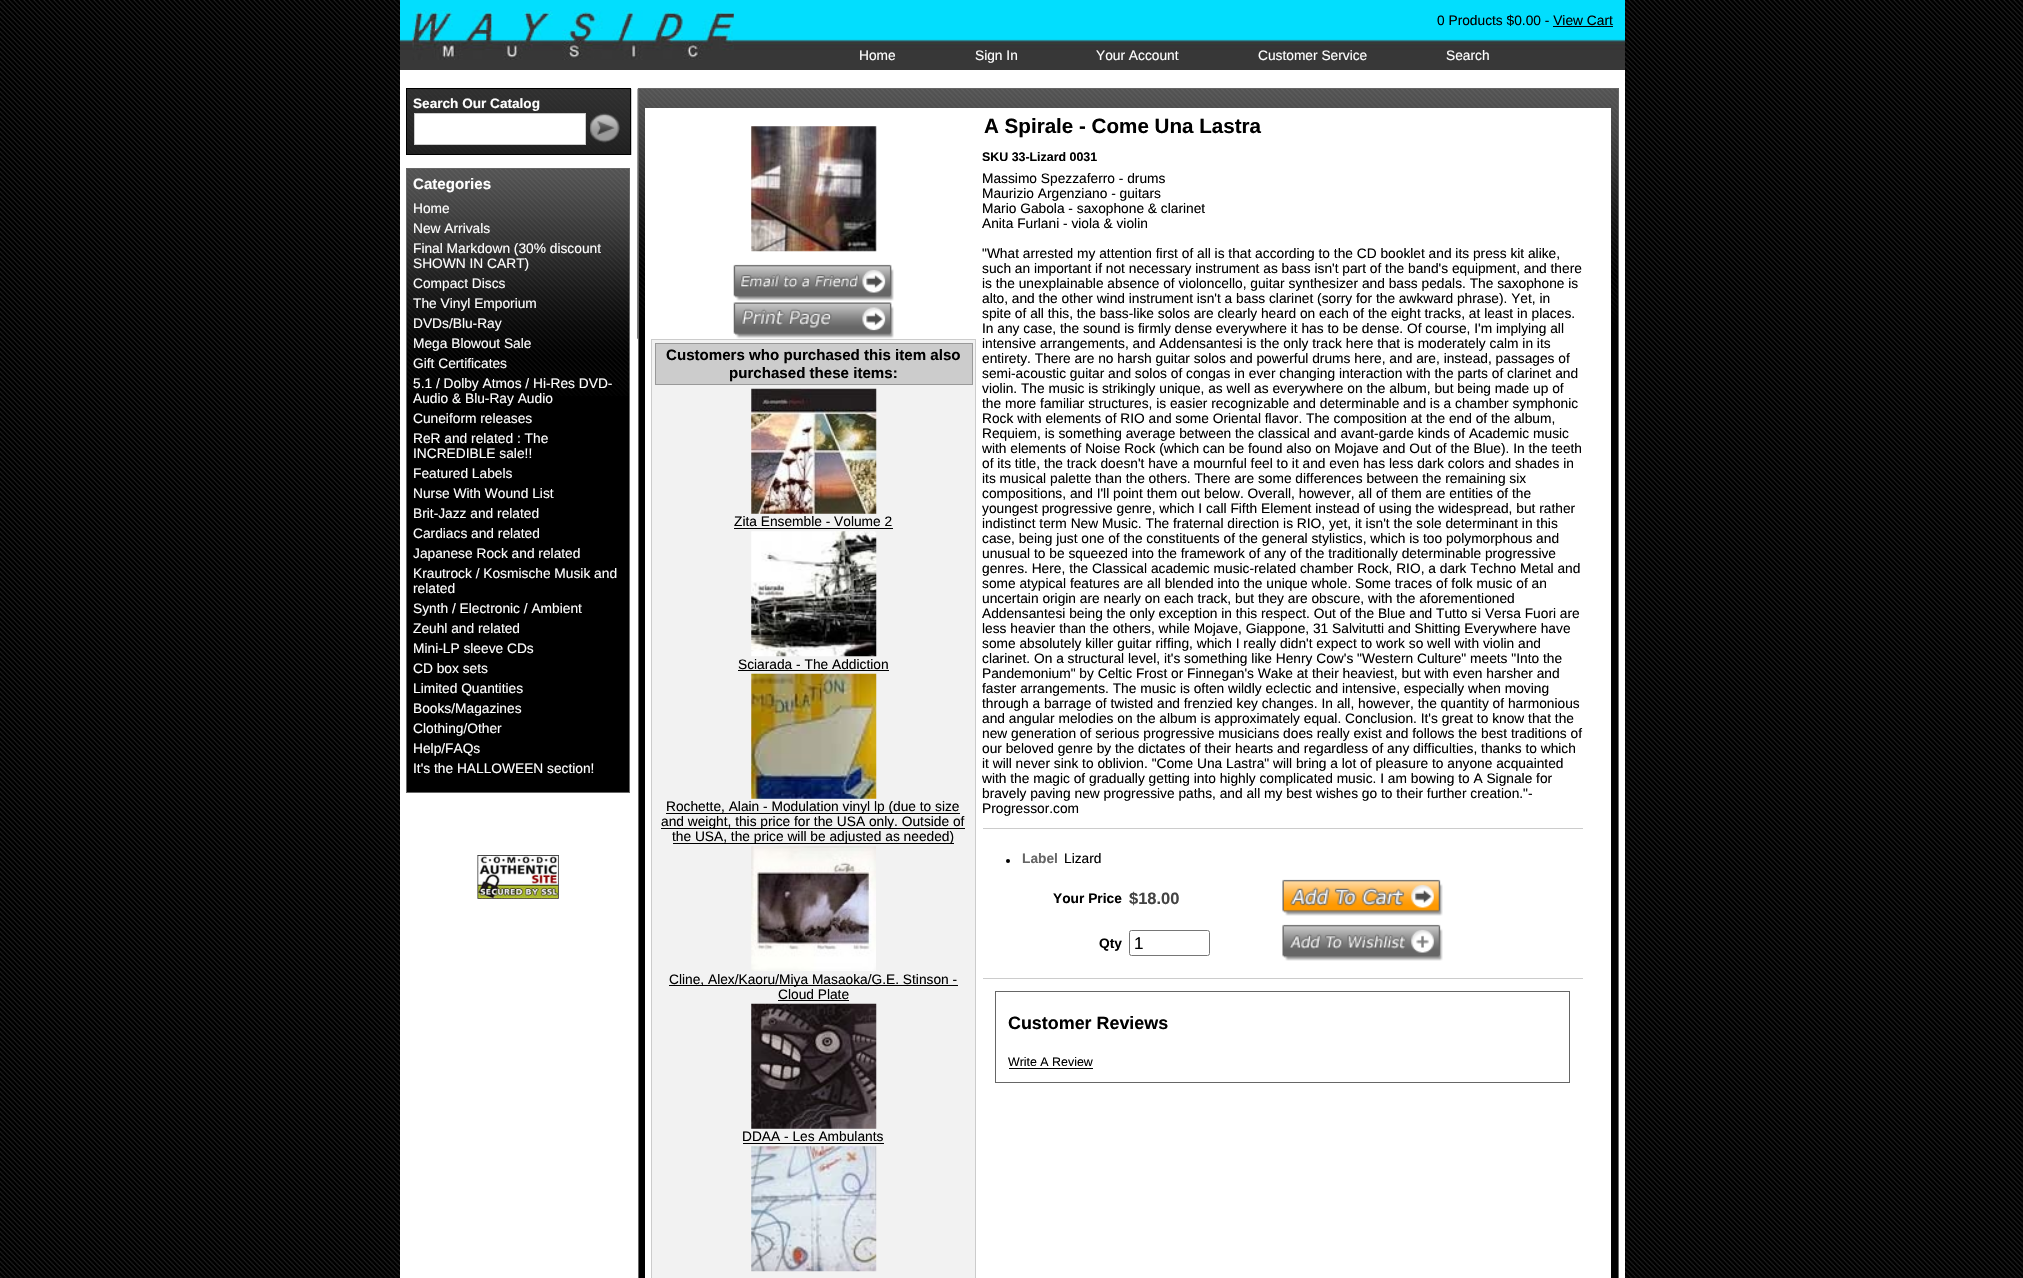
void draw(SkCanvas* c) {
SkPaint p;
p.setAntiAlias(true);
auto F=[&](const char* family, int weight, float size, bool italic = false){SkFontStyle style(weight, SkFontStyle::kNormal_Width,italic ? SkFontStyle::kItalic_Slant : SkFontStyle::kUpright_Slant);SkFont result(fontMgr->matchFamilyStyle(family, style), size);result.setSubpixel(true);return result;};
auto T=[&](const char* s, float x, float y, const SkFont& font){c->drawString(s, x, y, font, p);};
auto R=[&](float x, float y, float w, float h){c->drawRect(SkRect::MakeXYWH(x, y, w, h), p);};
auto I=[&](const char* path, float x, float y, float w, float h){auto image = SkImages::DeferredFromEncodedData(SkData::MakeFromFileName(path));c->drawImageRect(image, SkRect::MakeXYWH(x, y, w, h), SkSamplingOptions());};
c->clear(0xffffffff);
I("1.png",0,0,2023,1278);
p.setColor(0xffffffff);
R(400,70,1225,1208);
I("2.png",400,0,1225,70);
I("3.png",412,10,322,50);
auto f1 = F("Liberation Sans",400,13.75);
p.setColor(0xff000000);
T("0 Products $0.00 - View Cart",1437,25,f1);
R(1553,26,60,1);
p.setColor(0xffffffff);
T("Home",859,60,f1);
T("Sign In",975,60,f1);
T("Your Account",1096,60,f1);
T("Customer Service",1258,60,f1);
T("Search",1446,60,f1);
I("4.png",407,88,225,67);
p.setStroke(true);
p.setStrokeWidth(1);
p.setColor(0xff000000);
c->drawRect(SkRect::MakeXYWH(406.5,88.5,224,66),p);
auto f2 = F("Liberation Sans",700,13.6);
p.setStroke(false);
p.setColor(0xffffffff);
T("Search Our Catalog",413,108,f2);
c->drawRect(SkRect::MakeXYWH(414.5,113.5,171,31),p);
p.setStroke(true);
p.setColor(0xffcccccc);
c->drawRect(SkRect::MakeXYWH(414.5,113.5,171,31),p);
I("5.png",590,113,30,30);
p.setStroke(false);
p.setColor(0xff000000);
R(407,396,222,396);
I("6.png",407,169,222,227);
p.setStroke(true);
p.setColor(0xff666666);
c->drawRect(SkRect::MakeXYWH(406.5,168.5,223,624),p);
auto f3 = F("Liberation Sans",700,15.1);
p.setStroke(false);
p.setColor(0xffffffff);
T("Categories",413,189,f3);
T("Home",413,213,f1);
T("New Arrivals",413,233,f1);
T("Final Markdown (30% discount",413,253,f1);
T("SHOWN IN CART)",413,268,f1);
T("Compact Discs",413,288,f1);
T("The Vinyl Emporium",413,308,f1);
T("DVDs/Blu-Ray",413,328,f1);
T("Mega Blowout Sale",413,348,f1);
T("Gift Certificates",413,368,f1);
T("5.1 / Dolby Atmos / Hi-Res DVD-",413,388,f1);
T("Audio & Blu-Ray Audio",413,403,f1);
T("Cuneiform releases",413,423,f1);
T("ReR and related : The",413,443,f1);
T("INCREDIBLE sale!!",413,458,f1);
T("Featured Labels",413,478,f1);
T("Nurse With Wound List",413,498,f1);
T("Brit-Jazz and related",413,518,f1);
T("Cardiacs and related",413,538,f1);
T("Japanese Rock and related",413,558,f1);
T("Krautrock / Kosmische Musik and",413,578,f1);
T("related",413,593,f1);
T("Synth / Electronic / Ambient",413,613,f1);
T("Zeuhl and related",413,633,f1);
T("Mini-LP sleeve CDs",413,653,f1);
T("CD box sets",413,673,f1);
T("Limited Quantities",413,693,f1);
T("Books/Magazines",413,713,f1);
T("Clothing/Other",413,733,f1);
T("Help/FAQs",413,753,f1);
T("It's the HALLOWEEN section!",413,773,f1);
I("7.png",477,855,82,44);
p.setColor(0xff000000);
R(639,338,979,940);
I("8.png",637,88,981,251);
p.setStroke(true);
p.setColor(0xff666666);
c->drawRect(SkRect::MakeXYWH(638.5,88.5,980,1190),p);
p.setStroke(false);
p.setColor(0xffffffff);
R(645,108,966,1170);
I("9.png",751,126,126,126);
I("10.png",733,264,161,37);
I("11.png",733,302,161,37);
p.setColor(0xfff2f2f2);
c->drawRect(SkRect::MakeXYWH(651.5,339.5,324,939),p);
p.setStroke(true);
p.setColor(0xffcccccc);
c->drawRect(SkRect::MakeXYWH(651.5,339.5,324,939),p);
p.setStroke(false);
c->drawRect(SkRect::MakeXYWH(655.5,343.5,317,41),p);
p.setStroke(true);
p.setColor(0xff999999);
c->drawRect(SkRect::MakeXYWH(655.5,343.5,317,41),p);
p.setStroke(false);
p.setColor(0xff000000);
T("Customers who purchased this item also",666,360,f3);
T("purchased these items:",729,378,f3);
I("12.png",751,388,126,126);
T("Zita Ensemble - Volume 2",734,526,f1);
R(734,528,159,1);
I("13.png",751,531,126,126);
T("Sciarada - The Addiction",738,669,f1);
R(738,670,151,1);
I("14.png",751,673,126,126);
R(666,813,294,1);
T("Rochette, Alain - Modulation vinyl lp (due to size",666,811,f1);
R(661,828,304,1);
T("and weight, this price for the USA only. Outside of",661,826,f1);
R(673,843,281,1);
T("the USA, the price will be adjusted as needed)",672,841,f1);
I("15.png",751,846,125,125);
R(669,985,289,1);
T("Cline, Alex/Kaoru/Miya Masaoka/G.E. Stinson -",669,984,f1);
T("Cloud Plate",778,999,f1);
R(778,1000,71,1);
I("16.png",751,1003,126,126);
T("DDAA - Les Ambulants",742,1141,f1);
R(743,1143,141,1);
I("17.png",751,1146,126,126);
auto f4 = F("Liberation Sans",700,20.6);
T("A Spirale - Come Una Lastra",984,133,f4);
auto f5 = F("Liberation Sans",700,12.4);
T("SKU 33-Lizard 0031",982,161,f5);
T("Massimo Spezzaferro - drums",982,183,f1);
T("Maurizio Argenziano - guitars",982,198,f1);
T("Mario Gabola - saxophone & clarinet",982,213,f1);
T("Anita Furlani - viola & violin",982,228,f1);
T("\"What arrested my attention first of all is that according to the CD booklet and its press kit alike,",982,258,f1);
T("such an important if not necessary instrument as bass isn't part of the band's equipment, and there",982,273,f1);
T("is the unexplainable absence of violoncello, guitar synthesizer and bass pedals. The saxophone is",982,288,f1);
T("alto, and the other wind instrument isn't a bass clarinet (sorry for the awkward phrase). Yet, in",982,303,f1);
T("spite of all this, the bass-like solos are clearly heard on each of the eight tracks, at least in places.",982,318,f1);
T("In any case, the sound is firmly dense everywhere it has to be dense. Of course, I'm implying all",982,333,f1);
T("intensive arrangements, and Addensantesi is the only track here that is moderately calm in its",982,348,f1);
T("entirety. There are no harsh guitar solos and powerful drums here, and are, instead, passages of",982,363,f1);
T("semi-acoustic guitar and solos of congas in ever changing interaction with the parts of clarinet and",982,378,f1);
T("violin. The music is strikingly unique, as well as everywhere on the album, but being made up of",982,393,f1);
T("the more familiar structures, is easier recognizable and determinable and is a chamber symphonic",982,408,f1);
T("Rock with elements of RIO and some Oriental flavor. The composition at the end of the album,",982,423,f1);
T("Requiem, is something average between the classical and avant-garde kinds of Academic music",982,438,f1);
T("with elements of Noise Rock (which can be found also on Mojave and Out of the Blue). In the teeth",982,453,f1);
T("of its title, the track doesn't have a mournful feel to it and even has less dark colors and shades in",982,468,f1);
T("its musical palette than the others. There are some differences between the remaining six",982,483,f1);
T("compositions, and I'll point them out below. Overall, however, all of them are entities of the",982,498,f1);
T("youngest progressive genre, which I call Fifth Element instead of using the widespread, but rather",982,513,f1);
T("indistinct term New Music. The fraternal direction is RIO, yet, it isn't the sole determinant in this",982,528,f1);
T("case, being just one of the constituents of the general stylistics, which is too polymorphous and",982,543,f1);
T("unusual to be squeezed into the framework of any of the traditionally determinable progressive",982,558,f1);
T("genres. Here, the Classical academic music-related chamber Rock, RIO, a dark Techno Metal and",982,573,f1);
T("some atypical features are all blended into the unique whole. Some traces of folk music of an",982,588,f1);
T("uncertain origin are nearly on each track, but they are obscure, with the aforementioned",982,603,f1);
T("Addensantesi being the only exception in this respect. Out of the Blue and Tutto si Versa Fuori are",982,618,f1);
T("less heavier than the others, while Mojave, Giappone, 31 Salvitutti and Shitting Everywhere have",982,633,f1);
T("some absolutely killer guitar riffing, which I really didn't expect to work so well with violin and",982,648,f1);
T("clarinet. On a structural level, it's something like Henry Cow's \"Western Culture\" meets \"Into the",982,663,f1);
T("Pandemonium\" by Celtic Frost or Finnegan's Wake at their heaviest, but with even harsher and",982,678,f1);
T("faster arrangements. The music is often wildly eclectic and intensive, especially when moving",982,693,f1);
T("through a barrage of twisted and frenzied key changes. In all, however, the quantity of harmonious",982,708,f1);
T("and angular melodies on the album is approximately equal. Conclusion. It's great to know that the",982,723,f1);
T("new generation of serious progressive musicians does really exist and follows the best traditions of",982,738,f1);
T("our beloved genre by the dictates of their hearts and regardless of any difficulties, thanks to which",982,753,f1);
T("it will never sink to oblivion. \"Come Una Lastra\" will bring a lot of pleasure to anyone acquainted",982,768,f1);
T("with the magic of gradually getting into highly complicated music. I am bowing to A Signale for",982,783,f1);
T("bravely paving new progressive paths, and all my best wishes go to their further creation.\"-",982,798,f1);
T("Progressor.com",982,813,f1);
p.setColor(0xffcccccc);
R(983,828,600,1);
R(983,978,600,1);
p.setColor(0xff000000);
c->drawCircle(1008,861,2,p);
auto f6 = F("Liberation Sans",700,13.75);
p.setColor(0xff666666);
T("Label",1022,863,f6);
p.setColor(0xff000000);
T("Lizard",1064,863,f1);
T("Your Price",1053,903,f6);
auto f7 = F("Liberation Sans",700,16.5);
p.setColor(0xff444444);
T("$18.00",1129,904,f7);
I("18.png",1282,879,161,37);
p.setColor(0xff000000);
T("Qty",1099,948,f6);
p.setStroke(true);
p.setColor(0xff767676);
c->drawRoundRect(SkRect::MakeXYWH(1129.5,930.5,80,25),2,2,p);
auto f8 = F("Liberation Sans",400,17);
p.setStroke(false);
p.setColor(0xff000000);
T("1",1134,949,f8);
I("19.png",1282,924,161,37);
p.setStroke(true);
p.setColor(0xff666666);
c->drawRect(SkRect::MakeXYWH(995.5,991.5,574,91),p);
auto f9 = F("Liberation Sans",700,17.9);
p.setStroke(false);
p.setColor(0xff000000);
T("Customer Reviews",1008,1029,f9);
auto f10 = F("Liberation Sans",400,12.4);
T("Write A Review",1008,1066,f10);
R(1009,1068,84,1);
}
